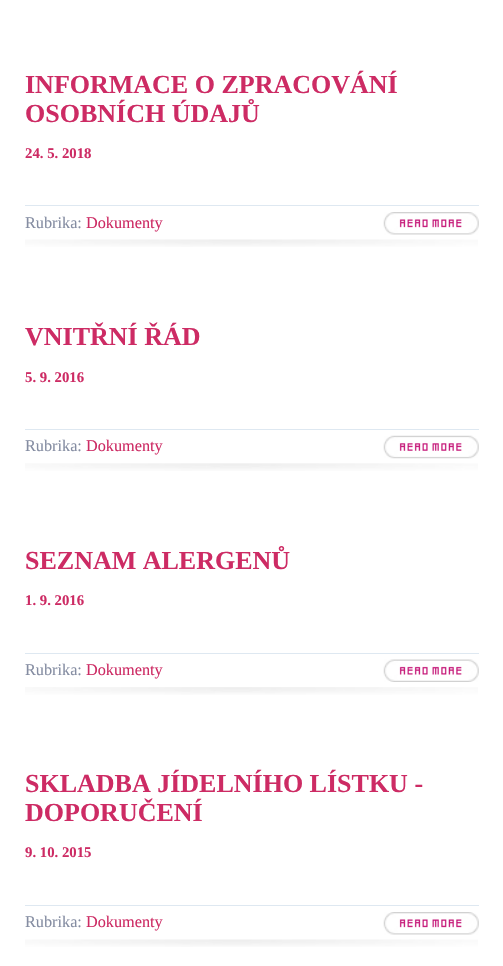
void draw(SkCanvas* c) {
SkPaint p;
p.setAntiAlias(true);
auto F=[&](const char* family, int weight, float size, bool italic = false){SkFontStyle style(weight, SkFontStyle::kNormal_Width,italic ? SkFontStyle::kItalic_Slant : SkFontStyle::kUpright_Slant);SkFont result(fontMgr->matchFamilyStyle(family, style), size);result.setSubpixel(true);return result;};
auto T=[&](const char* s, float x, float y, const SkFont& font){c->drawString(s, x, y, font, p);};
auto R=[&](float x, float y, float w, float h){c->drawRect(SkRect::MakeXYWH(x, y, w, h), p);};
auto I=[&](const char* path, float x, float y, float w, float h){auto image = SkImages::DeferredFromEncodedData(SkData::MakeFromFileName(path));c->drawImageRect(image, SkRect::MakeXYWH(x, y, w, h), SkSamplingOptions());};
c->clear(0xffffffff);
auto f1 = F("Liberation Serif",700,26);
p.setColor(0xffcd2b64);
T("INFORMACE O ZPRACOVÁNÍ",25,93,f1);
T("OSOBNÍCH ÚDAJŮ",25,122,f1);
auto f2 = F("Liberation Serif",700,14.75);
T("24. 5. 2018",25,158,f2);
I("1.png",25,239,453,8);
p.setColor(0xffdee8f1);
R(25,205,454,1);
auto f3 = F("Liberation Serif",400,16.25);
p.setColor(0xff858da2);
T("Rubrika:",25,228,f3);
p.setColor(0xffcd2b64);
T("Dokumenty",86,228,f3);
I("2.png",383,212,96,23);
T("VNITŘNÍ ŘÁD",25,345,f1);
T("5. 9. 2016",25,382,f2);
I("3.png",25,463,453,8);
p.setColor(0xffdee8f1);
R(25,429,454,1);
p.setColor(0xff858da2);
T("Rubrika:",25,451,f3);
p.setColor(0xffcd2b64);
T("Dokumenty",86,451,f3);
I("4.png",383,435,96,24);
T("SEZNAM ALERGENŮ",25,569,f1);
T("1. 9. 2016",25,605,f2);
I("5.png",25,687,453,8);
p.setColor(0xffdee8f1);
R(25,653,454,1);
p.setColor(0xff858da2);
T("Rubrika:",25,675,f3);
p.setColor(0xffcd2b64);
T("Dokumenty",86,675,f3);
I("6.png",383,659,96,23);
T("SKLADBA JÍDELNÍHO LÍSTKU -",25,792,f1);
T("DOPORUČENÍ",25,821,f1);
T("9. 10. 2015",25,857,f2);
I("1.png",25,939,453,8);
p.setColor(0xffdee8f1);
R(25,905,454,1);
p.setColor(0xff858da2);
T("Rubrika:",25,927,f3);
p.setColor(0xffcd2b64);
T("Dokumenty",86,927,f3);
I("7.png",383,912,96,23);
}
